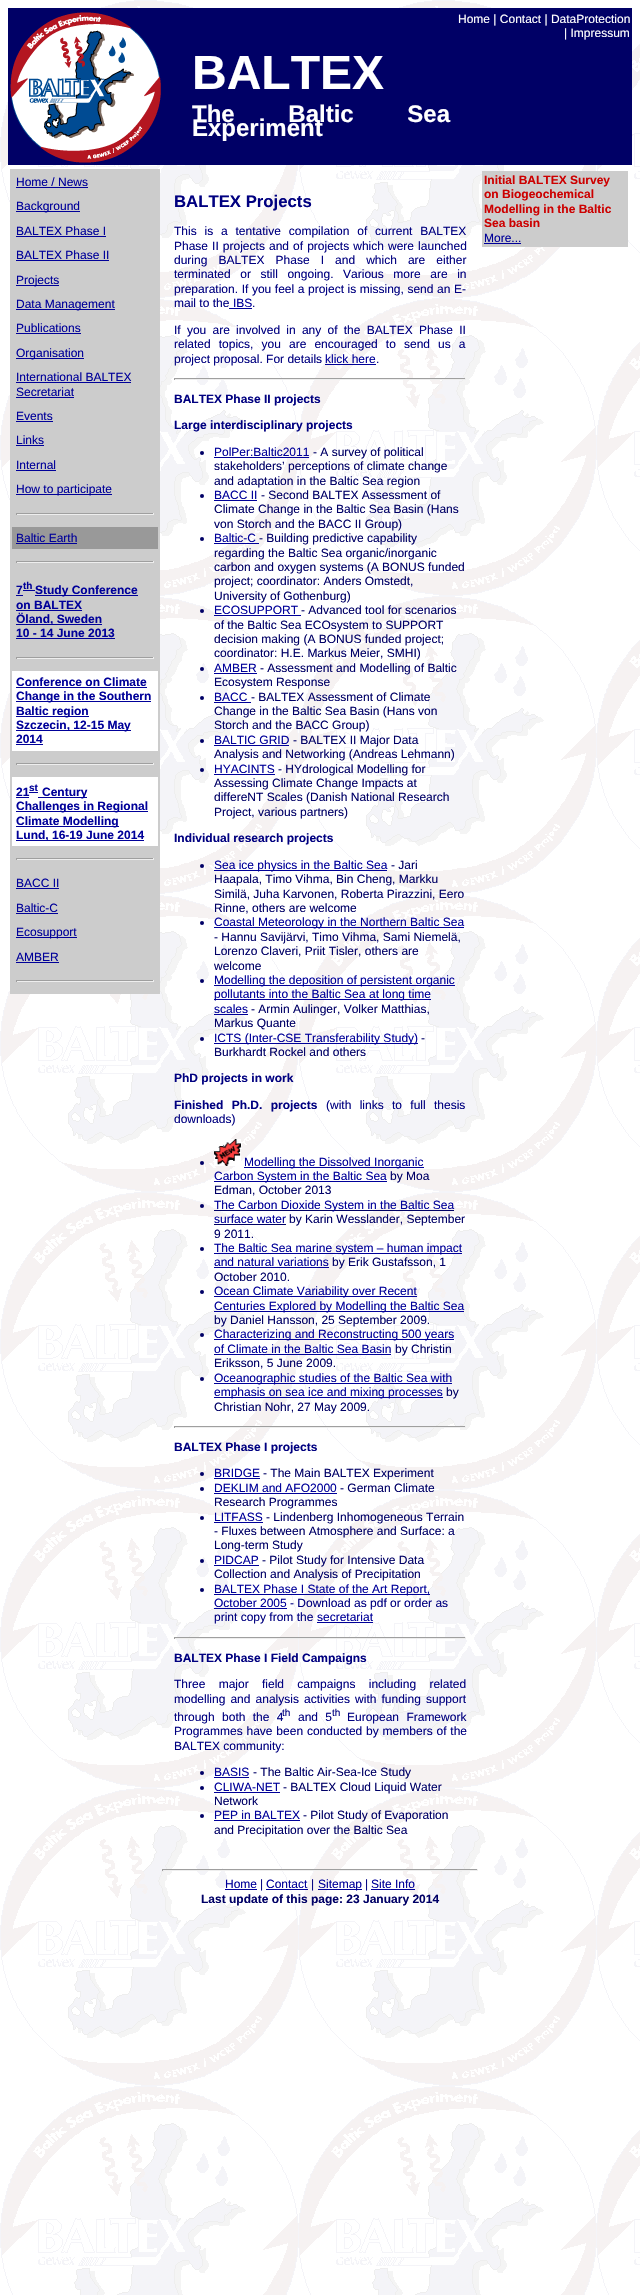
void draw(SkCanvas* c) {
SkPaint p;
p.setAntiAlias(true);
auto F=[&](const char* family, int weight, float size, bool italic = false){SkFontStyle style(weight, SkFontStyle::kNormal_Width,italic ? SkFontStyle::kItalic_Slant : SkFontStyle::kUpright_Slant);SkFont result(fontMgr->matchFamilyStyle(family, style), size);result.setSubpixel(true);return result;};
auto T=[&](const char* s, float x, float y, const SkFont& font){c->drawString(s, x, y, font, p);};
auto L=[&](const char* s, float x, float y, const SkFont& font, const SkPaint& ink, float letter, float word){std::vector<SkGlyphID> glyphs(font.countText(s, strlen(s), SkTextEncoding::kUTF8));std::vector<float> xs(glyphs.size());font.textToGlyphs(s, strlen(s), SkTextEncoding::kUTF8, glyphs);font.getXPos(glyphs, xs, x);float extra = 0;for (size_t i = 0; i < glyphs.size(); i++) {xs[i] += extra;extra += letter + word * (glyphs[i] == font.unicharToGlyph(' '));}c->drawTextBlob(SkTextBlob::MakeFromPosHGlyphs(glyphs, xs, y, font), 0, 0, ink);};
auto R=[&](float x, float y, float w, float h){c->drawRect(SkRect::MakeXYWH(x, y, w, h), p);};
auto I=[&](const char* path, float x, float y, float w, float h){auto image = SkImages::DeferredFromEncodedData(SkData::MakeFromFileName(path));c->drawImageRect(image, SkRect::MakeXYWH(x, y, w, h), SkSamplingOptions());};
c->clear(0xffffffff);
I("1.png",0,0,640,2295);
p.setColor(0xff000066);
R(8,8,624,157);
I("2.png",10,12,151,151);
auto f1 = F("Liberation Sans",400,12);
p.setColor(0xffffffff);
T("Home | Contact | DataProtection",458,23,f1);
T("| Impressum",564,37,f1);
auto f2 = F("Liberation Sans",700,48);
T("BALTEX",192,89,f2);
auto f3 = F("Liberation Sans",700,24);
L("The Baltic Sea",192,122,f3,p,0,47);
T("Experiment",192,136,f3);
p.setColor(0xffcccccc);
R(10,169,150,825);
p.setColor(0xff000099);
T("Home / News",16,186,f1);
R(16,187,72,1);
R(16,211,64,1);
T("Background",16,210,f1);
T("BALTEX Phase I",16,235,f1);
R(16,236,90,1);
T("BALTEX Phase II",16,259,f1);
R(16,260,93,1);
R(16,285,43,1);
T("Projects",16,284,f1);
R(16,309,99,1);
T("Data Management",16,308,f1);
T("Publications",16,332,f1);
R(16,333,65,1);
R(16,358,68,1);
T("Organisation",16,357,f1);
T("International BALTEX",16,381,f1);
R(16,382,115,1);
T("Secretariat",16,396,f1);
R(16,397,58,1);
T("Events",16,420,f1);
R(16,421,37,1);
T("Links",16,444,f1);
R(16,445,28,1);
T("Internal",16,469,f1);
R(16,470,40,1);
R(16,494,96,1);
T("How to participate",16,493,f1);
p.setColor(0xff9f9f9f);
R(16,513,138,1);
p.setColor(0xffeeeeee);
R(153,513,1,2);
R(16,514,138,1);
p.setColor(0xff9f9f9f);
R(16,513,1,2);
p.setColor(0xff999999);
R(12,527,146,22);
p.setColor(0xff000099);
T("Baltic Earth",16,542,f1);
R(16,543,61,1);
p.setColor(0xff9f9f9f);
R(16,561,138,1);
p.setColor(0xffeeeeee);
R(153,561,1,2);
R(16,562,138,1);
p.setColor(0xff9f9f9f);
R(16,561,1,2);
auto f4 = F("Liberation Sans",700,12);
p.setColor(0xff000099);
T("7",16,594,f4);
R(16,595,7,1);
auto f5 = F("Liberation Sans",700,10);
T("th",23,589,f5);
R(35,595,103,1);
T("Study Conference",35,594,f4);
R(23,590,12,1);
T("on BALTEX",16,609,f4);
R(16,610,66,1);
R(16,624,86,1);
T("Öland, Sweden",16,623,f4);
T("10 - 14 June 2013",16,637,f4);
R(16,638,99,1);
p.setColor(0xff9f9f9f);
R(16,657,138,1);
p.setColor(0xffeeeeee);
R(153,657,1,2);
R(16,658,138,1);
p.setColor(0xff9f9f9f);
R(16,657,1,2);
p.setColor(0xffffffff);
R(12,671,146,80);
p.setColor(0xff000099);
T("Conference on Climate",16,686,f4);
R(16,687,131,1);
R(16,701,135,1);
T("Change in the Southern",16,700,f4);
R(16,716,73,1);
T("Baltic region",16,715,f4);
R(16,730,115,1);
T("Szczecin, 12-15 May",16,729,f4);
T("2014",16,743,f4);
R(16,744,27,1);
p.setColor(0xff9f9f9f);
R(16,763,138,1);
p.setColor(0xffeeeeee);
R(153,763,1,2);
R(16,764,138,1);
p.setColor(0xff9f9f9f);
R(16,763,1,2);
p.setColor(0xffffffff);
R(12,777,146,69);
p.setColor(0xff000099);
T("21",16,796,f4);
R(16,797,13,1);
R(29,792,9,1);
T("st",29,791,f5);
R(38,797,49,1);
T("Century",42,796,f4);
R(16,811,132,1);
T("Challenges in Regional",16,810,f4);
R(16,826,103,1);
T("Climate Modelling",16,825,f4);
R(16,840,128,1);
T("Lund, 16-19 June 2014",16,839,f4);
p.setColor(0xff9f9f9f);
R(16,858,138,1);
p.setColor(0xffeeeeee);
R(153,858,1,2);
R(16,859,138,1);
p.setColor(0xff9f9f9f);
R(16,858,1,2);
p.setColor(0xff000099);
T("BACC II",16,887,f1);
R(16,888,43,1);
T("Baltic-C",16,912,f1);
R(16,913,42,1);
R(16,937,61,1);
T("Ecosupport",16,936,f1);
T("AMBER",16,961,f1);
R(16,962,43,1);
p.setColor(0xff9f9f9f);
R(16,980,138,1);
p.setColor(0xffeeeeee);
R(153,980,1,2);
R(16,981,138,1);
p.setColor(0xff9f9f9f);
R(16,980,1,2);
auto f6 = F("Liberation Sans",700,16.75);
p.setColor(0xff000080);
T("BALTEX Projects",174,207,f6);
L("This is a tentative compilation of current BALTEX",174,235,f1,p,0,4.5);
L("Phase II projects and of projects which were launched",174,250,f1,p,0,.75);
L("during BALTEX Phase I and which are either",174,264,f1,p,0,7.75);
L("terminated or still ongoing. Various more are in",174,278,f1,p,0,6.25);
L("preparation. If you feel a project is missing, send an E-",174,293,f1,p,0,.25);
T("mail to the",174,307,f1);
p.setColor(0xff000099);
T("IBS",233,307,f1);
R(229,308,23,1);
p.setColor(0xff000080);
T(".",252,307,f1);
L("If you are involved in any of the BALTEX Phase II",174,334,f1,p,0,2.9);
L("related topics, you are encouraged to send us a",174,348,f1,p,0,4.75);
T("project proposal. For details",174,363,f1);
p.setColor(0xff000099);
T("klick here",325,363,f1);
R(325,364,51,1);
p.setColor(0xff000080);
T(".",376,363,f1);
p.setColor(0xff9f9f9f);
R(174,378,292,1);
p.setColor(0xffeeeeee);
R(465,378,1,2);
R(174,379,292,1);
p.setColor(0xff9f9f9f);
R(174,378,1,2);
p.setColor(0xff000080);
T("BALTEX Phase II projects",174,403,f4);
T("Large interdisciplinary projects",174,429,f4);
p.setColor(0xff000066);
c->drawCircle(202,453,2,p);
p.setColor(0xff000099);
T("PolPer:Baltic2011",214,456,f1);
R(214,457,95,1);
p.setColor(0xff000066);
T("- A survey of political",313,456,f1);
T("stakeholders’ perceptions of climate change",214,470,f1);
T("and adaptation in the Baltic Sea region",214,485,f1);
c->drawCircle(202,496,2,p);
p.setColor(0xff000099);
T("BACC II",214,499,f1);
R(214,500,43,1);
p.setColor(0xff000066);
T("- Second BALTEX Assessment of",261,499,f1);
T("Climate Change in the Baltic Sea Basin (Hans",214,513,f1);
T("von Storch and the BACC II Group)",214,528,f1);
c->drawCircle(202,539,2,p);
p.setColor(0xff000099);
T("Baltic-C",214,542,f1);
p.setColor(0xff000066);
T("- Building predictive capability",259,542,f1);
p.setColor(0xff000099);
R(214,543,45,1);
p.setColor(0xff000066);
T("regarding the Baltic Sea organic/inorganic",214,557,f1);
T("carbon and oxygen systems (A BONUS funded",214,571,f1);
T("project; coordinator: Anders Omstedt,",214,585,f1);
T("University of Gothenburg)",214,600,f1);
c->drawCircle(202,611,2,p);
p.setColor(0xff000099);
T("ECOSUPPORT",214,614,f1);
R(214,615,87,1);
p.setColor(0xff000066);
T("- Advanced tool for scenarios",301,614,f1);
T("of the Baltic Sea ECOsystem to SUPPORT",214,629,f1);
T("decision making (A BONUS funded project;",214,643,f1);
T("coordinator: H.E. Markus Meier, SMHI)",214,657,f1);
c->drawCircle(202,669,2,p);
p.setColor(0xff000099);
T("AMBER",214,672,f1);
R(214,673,43,1);
p.setColor(0xff000066);
T("- Assessment and Modelling of Baltic",260,672,f1);
T("Ecosystem Response",214,686,f1);
c->drawCircle(202,698,2,p);
p.setColor(0xff000099);
T("BACC",214,701,f1);
R(214,702,37,1);
p.setColor(0xff000066);
T("- BALTEX Assessment of Climate",251,701,f1);
T("Change in the Baltic Sea Basin (Hans von",214,715,f1);
T("Storch and the BACC Group)",214,729,f1);
c->drawCircle(202,741,2,p);
p.setColor(0xff000099);
T("BALTIC GRID",214,744,f1);
R(214,745,75,1);
p.setColor(0xff000066);
T("- BALTEX II Major Data",293,744,f1);
T("Analysis and Networking (Andreas Lehmann)",214,758,f1);
c->drawCircle(202,770,2,p);
p.setColor(0xff000099);
T("HYACINTS",214,773,f1);
R(214,774,61,1);
p.setColor(0xff000066);
T("- HYdrological Modelling for",278,773,f1);
T("Assessing Climate Change Impacts at",214,787,f1);
T("differeNT Scales (Danish National Research",214,801,f1);
T("Project, various partners)",214,816,f1);
p.setColor(0xff000080);
T("Individual research projects",174,842,f4);
p.setColor(0xff000066);
c->drawCircle(202,866,2,p);
p.setColor(0xff000099);
R(214,870,173,1);
T("Sea ice physics in the Baltic Sea",214,869,f1);
p.setColor(0xff000066);
T("- Jari",391,869,f1);
T("Haapala, Timo Vihma, Bin Cheng, Markku",214,883,f1);
T("Similä, Juha Karvonen, Roberta Pirazzini, Eero",214,898,f1);
T("Rinne, others are welcome",214,912,f1);
c->drawCircle(202,923,2,p);
p.setColor(0xff000099);
R(214,927,250,1);
T("Coastal Meteorology in the Northern Baltic Sea",214,926,f1);
p.setColor(0xff000066);
T("- Hannu Savijärvi, Timo Vihma, Sami Niemelä,",214,941,f1);
T("Lorenzo Claveri, Priit Tisler, others are",214,955,f1);
T("welcome",214,970,f1);
c->drawCircle(202,981,2,p);
p.setColor(0xff000099);
R(214,985,241,1);
T("Modelling the deposition of persistent organic",214,984,f1);
R(214,999,151,1);
T("pollutants into the Baltic Sea",214,998,f1);
R(365,999,66,1);
T("at long time",369,998,f1);
T("scales",214,1013,f1);
R(214,1014,34,1);
p.setColor(0xff000066);
T("- Armin Aulinger, Volker Matthias,",251,1013,f1);
T("Markus Quante",214,1027,f1);
c->drawCircle(202,1039,2,p);
p.setColor(0xff000099);
R(214,1043,204,1);
T("ICTS (Inter-CSE Transferability Study)",214,1042,f1);
p.setColor(0xff000066);
T("-",421,1042,f1);
T("Burkhardt Rockel and others",214,1056,f1);
p.setColor(0xff000080);
T("PhD projects in work",174,1082,f4);
L("Finished Ph.D. projects",174,1109,f4,p,0,5);
L("(with links to full thesis",326,1109,f1,p,0,5);
T("downloads)",174,1123,f1);
p.setColor(0xff000066);
c->drawCircle(202,1163,2,p);
I("3.png",214,1139,27,27);
p.setColor(0xff000099);
R(244,1167,180,1);
T("Modelling the Dissolved Inorganic",244,1166,f1);
R(214,1181,173,1);
T("Carbon System in the Baltic Sea",214,1180,f1);
p.setColor(0xff000066);
T("by Moa",390,1180,f1);
T("Edman, October 2013",214,1194,f1);
c->drawCircle(202,1206,2,p);
R(214,1210,240,1);
p.setColor(0xff000099);
T("The Carbon Dioxide System in the Baltic Sea",214,1209,f1);
T("surface water",214,1223,f1);
p.setColor(0xff000066);
R(214,1224,72,1);
T("by Karin Wesslander, September",289,1223,f1);
T("9 2011.",214,1238,f1);
c->drawCircle(202,1249,2,p);
p.setColor(0xff000099);
R(214,1253,248,1);
T("The Baltic Sea marine system – human impact",214,1252,f1);
T("and natural variations",214,1266,f1);
R(214,1267,115,1);
p.setColor(0xff000066);
T("by Erik Gustafsson, 1",332,1266,f1);
T("October 2010.",214,1281,f1);
c->drawCircle(202,1292,2,p);
p.setColor(0xff000099);
R(214,1296,203,1);
T("Ocean Climate Variability over Recent",214,1295,f1);
R(214,1311,250,1);
T("Centuries Explored by Modelling the Baltic Sea",214,1310,f1);
p.setColor(0xff000066);
T("by Daniel Hansson, 25 September 2009.",214,1324,f1);
c->drawCircle(202,1335,2,p);
p.setColor(0xff000099);
R(214,1339,240,1);
T("Characterizing and Reconstructing 500 years",214,1338,f1);
T("of Climate in the Baltic Sea Basin",214,1353,f1);
R(214,1354,177,1);
p.setColor(0xff000066);
T("by Christin",395,1353,f1);
T("Eriksson, 5 June 2009.",214,1367,f1);
c->drawCircle(202,1379,2,p);
p.setColor(0xff000099);
R(214,1383,238,1);
T("Oceanographic studies of the Baltic Sea with",214,1382,f1);
R(214,1397,229,1);
T("emphasis on sea ice and mixing processes",214,1396,f1);
p.setColor(0xff000066);
T("by",446,1396,f1);
T("Christian Nohr, 27 May 2009.",214,1411,f1);
p.setColor(0xff9f9f9f);
R(174,1426,292,1);
p.setColor(0xffeeeeee);
R(465,1426,1,2);
R(174,1427,292,1);
p.setColor(0xff9f9f9f);
R(174,1426,1,2);
p.setColor(0xff000080);
T("BALTEX Phase I projects",174,1451,f4);
p.setColor(0xff000066);
c->drawCircle(202,1474,2,p);
p.setColor(0xff000099);
T("BRIDGE",214,1477,f1);
R(214,1478,46,1);
p.setColor(0xff000066);
T("- The Main BALTEX Experiment",263,1477,f1);
c->drawCircle(202,1489,2,p);
p.setColor(0xff000099);
T("DEKLIM and AFO2000",214,1492,f1);
R(214,1493,123,1);
p.setColor(0xff000066);
T("- German Climate",340,1492,f1);
T("Research Programmes",214,1506,f1);
c->drawCircle(202,1518,2,p);
p.setColor(0xff000099);
T("LITFASS",214,1521,f1);
R(214,1522,49,1);
p.setColor(0xff000066);
T("- Lindenberg Inhomogeneous Terrain",266,1521,f1);
T("- Fluxes between Atmosphere and Surface: a",214,1535,f1);
T("Long-term Study",214,1549,f1);
c->drawCircle(202,1561,2,p);
p.setColor(0xff000099);
T("PIDCAP",214,1564,f1);
R(214,1565,45,1);
p.setColor(0xff000066);
T("- Pilot Study for Intensive Data",262,1564,f1);
T("Collection and Analysis of Precipitation",214,1578,f1);
c->drawCircle(202,1590,2,p);
p.setColor(0xff000099);
R(214,1594,216,1);
T("BALTEX Phase I State of the Art Report,",214,1593,f1);
T("October 2005",214,1607,f1);
R(214,1608,73,1);
p.setColor(0xff000080);
T("- Download as pdf or order as",290,1607,f1);
T("print copy from the",214,1621,f1);
p.setColor(0xff000099);
T("secretariat",317,1621,f1);
R(317,1622,56,1);
p.setColor(0xff9f9f9f);
R(174,1637,292,1);
p.setColor(0xffeeeeee);
R(465,1637,1,2);
R(174,1638,292,1);
p.setColor(0xff9f9f9f);
R(174,1637,1,2);
p.setColor(0xff000080);
T("BALTEX Phase I Field Campaigns",174,1662,f4);
L("Three major field campaigns including related",174,1688,f1,p,0,10);
L("modelling and analysis activities with funding support",174,1703,f1,p,0,1.75);
L("through both the 4",174,1721,f1,p,0,4);
auto f7 = F("Liberation Sans",400,10);
T("th",282,1716,f7);
L("and 5",298,1721,f1,p,0,4);
T("th",332,1716,f7);
L("European Framework",347,1721,f1,p,0,4);
L("Programmes have been conducted by members of the",174,1735,f1,p,0,.5);
T("BALTEX community:",174,1750,f1);
p.setColor(0xff000066);
c->drawCircle(202,1773,2,p);
p.setColor(0xff000099);
T("BASIS",214,1776,f1);
R(214,1777,35,1);
p.setColor(0xff000066);
T("- The Baltic Air-Sea-Ice Study",253,1776,f1);
c->drawCircle(202,1788,2,p);
p.setColor(0xff000099);
T("CLIWA-NET",214,1791,f1);
R(214,1792,66,1);
p.setColor(0xff000066);
T("- BALTEX Cloud Liquid Water",283,1791,f1);
T("Network",214,1805,f1);
c->drawCircle(202,1816,2,p);
p.setColor(0xff000099);
T("PEP in BALTEX",214,1819,f1);
R(214,1820,86,1);
p.setColor(0xff000066);
T("- Pilot Study of Evaporation",303,1819,f1);
T("and Precipitation over the Baltic Sea",214,1834,f1);
p.setColor(0xffcccccc);
R(482,171,146,76);
p.setColor(0xffcc0000);
T("Initial BALTEX Survey",484,184,f4);
T("on Biogeochemical",484,198,f4);
T("Modelling in the Baltic",484,213,f4);
T("Sea basin",484,227,f4);
p.setColor(0xff000099);
T("More...",484,242,f1);
R(484,243,37,1);
p.setColor(0xff9f9f9f);
R(162,1869,316,1);
p.setColor(0xffeeeeee);
R(477,1869,1,2);
R(162,1870,316,1);
p.setColor(0xff9f9f9f);
R(162,1869,1,2);
p.setColor(0xff000099);
T("Home",225,1888,f1);
R(225,1889,32,1);
p.setColor(0xff000080);
T("|",260,1888,f1);
p.setColor(0xff000099);
T("Contact",266,1888,f1);
R(266,1889,42,1);
p.setColor(0xff000080);
T("|",311,1888,f1);
p.setColor(0xff000099);
R(318,1889,44,1);
T("Sitemap",318,1888,f1);
p.setColor(0xff000080);
T("|",365,1888,f1);
p.setColor(0xff000099);
T("Site Info",371,1888,f1);
R(371,1889,44,1);
p.setColor(0xff000066);
T("Last update of this page: 23 January 2014",201,1903,f4);
}
